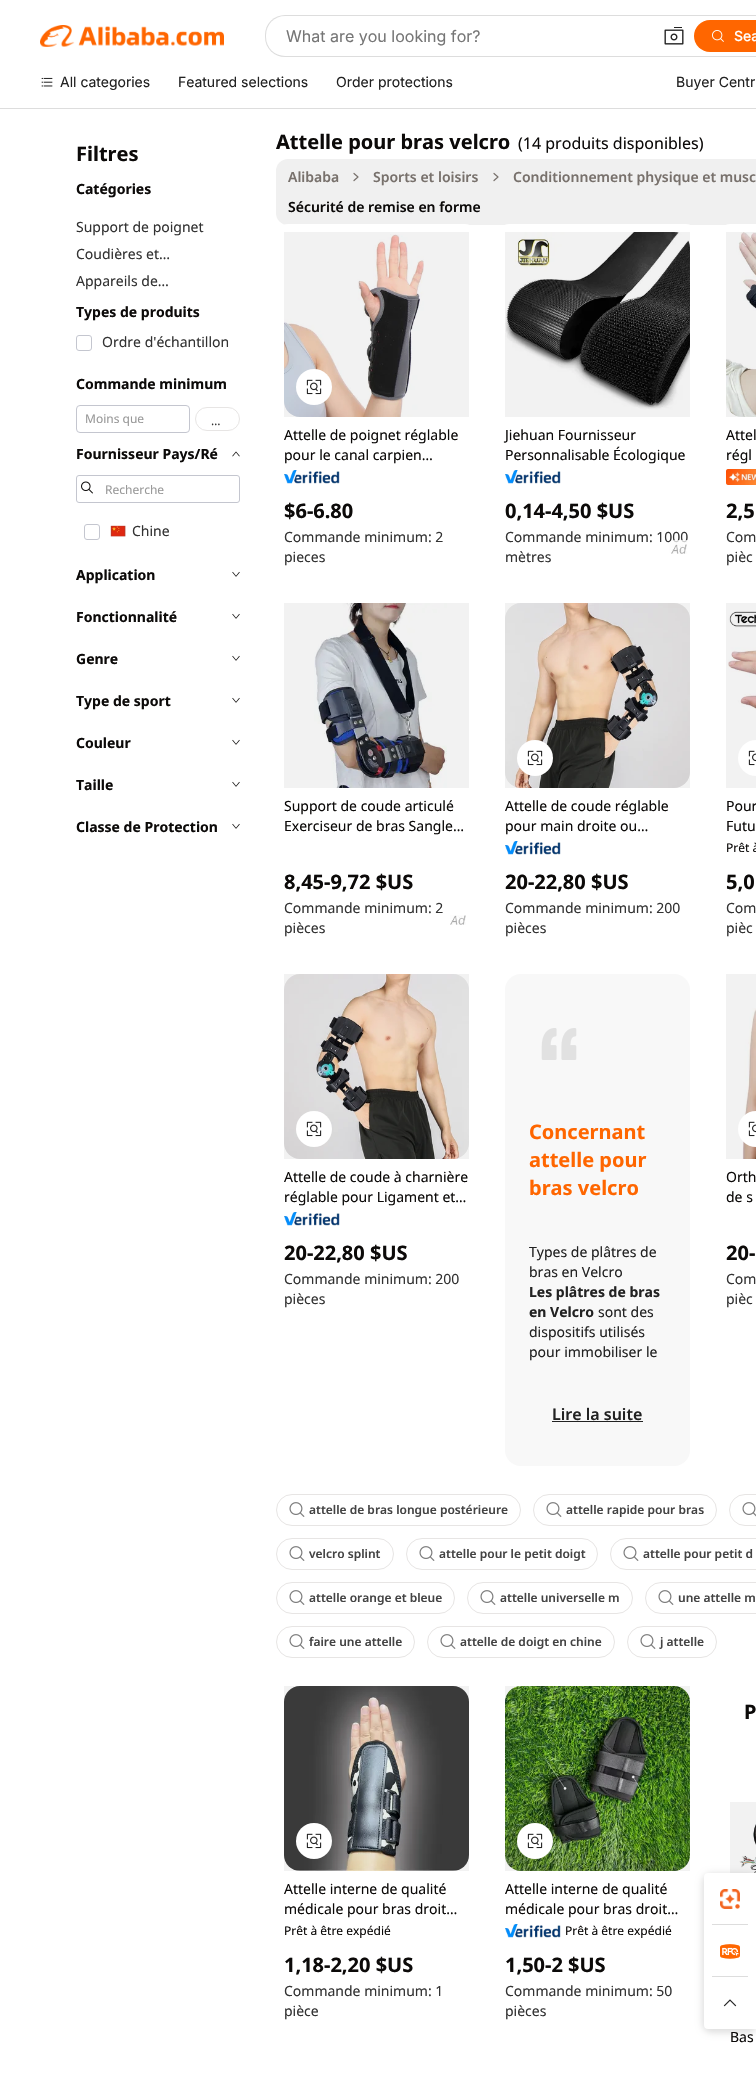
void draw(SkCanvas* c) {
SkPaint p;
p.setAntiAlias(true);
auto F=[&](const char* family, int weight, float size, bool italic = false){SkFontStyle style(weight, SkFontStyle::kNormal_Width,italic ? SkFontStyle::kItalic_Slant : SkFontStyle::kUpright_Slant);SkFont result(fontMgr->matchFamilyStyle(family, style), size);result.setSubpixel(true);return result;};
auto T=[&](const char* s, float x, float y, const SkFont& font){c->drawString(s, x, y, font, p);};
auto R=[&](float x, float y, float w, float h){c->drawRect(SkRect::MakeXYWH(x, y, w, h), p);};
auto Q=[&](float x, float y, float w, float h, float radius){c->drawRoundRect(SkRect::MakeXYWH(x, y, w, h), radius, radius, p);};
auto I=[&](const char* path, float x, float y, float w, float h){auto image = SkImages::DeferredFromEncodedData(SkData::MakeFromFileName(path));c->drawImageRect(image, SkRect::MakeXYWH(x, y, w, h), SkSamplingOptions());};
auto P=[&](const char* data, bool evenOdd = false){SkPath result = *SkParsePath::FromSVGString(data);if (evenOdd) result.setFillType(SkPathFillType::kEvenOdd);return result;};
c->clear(0xffffffff);
p.setColor(0xffdddddd);
R(0,108,756,1);
I("1.png",40,25,184,22);
Q(265,15,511,42,20);
p.setColor(0xffffffff);
Q(266,16,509,40,19);
auto f1 = F("Inter",400,16);
p.setColor(0xff767676);
T("What are you looking for?",286,42,f1);
I("2.png",664,27,20,18);
p.setColor(0xffff6600);
Q(694,20,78,32,16);
I("3.png",712,30,12,12);
auto f2 = F("Inter",500,14);
p.setColor(0xffffffff);
T("Sea",734,41,f2);
I("4.png",41,77,12,10);
auto f3 = F("Inter",400,14);
p.setColor(0xff222222);
T("All categories",60,87,f3);
T("Featured selections",178,87,f3);
T("Order protections",336,87,f3);
T("Buyer Centr",676,87,f3);
auto f4 = F("Noto Sans",700,20);
p.setColor(0xff0c0a09);
T("Filtres",76,161,f4);
auto f5 = F("Noto Sans",700,14);
T("Catégories",76,194,f5);
auto f6 = F("Noto Sans",400,14);
p.setColor(0xff333333);
T("Support de poignet",76,232,f6);
T("Coudières et…",76,259,f6);
T("Appareils de…",76,286,f6);
p.setColor(0xff0c0a09);
T("Types de produits",76,317,f5);
p.setStroke(true);
p.setStrokeWidth(1);
p.setColor(0xffc4c6cf);
c->drawRoundRect(SkRect::MakeXYWH(76.5,335.5,15,15),2.5,2.5,p);
p.setStroke(false);
p.setColor(0xff333333);
T("Ordre d'échantillon",102,347,f6);
p.setColor(0xff0c0a09);
T("Commande minimum",76,389,f5);
p.setStroke(true);
p.setColor(0xffc4c6cf);
c->drawRoundRect(SkRect::MakeXYWH(76.5,405.5,113,27),3.5,3.5,p);
auto f7 = F("Noto Sans",400,12);
p.setStroke(false);
p.setColor(0xff999999);
T("Moins que",85,423,f7);
p.setStroke(true);
p.setColor(0xffe7e5e4);
c->drawRoundRect(SkRect::MakeXYWH(195.5,407.5,44,23),11.5,11.5,p);
p.setStroke(false);
p.setColor(0xff333333);
T("…",211,425,f7);
p.setColor(0xff0c0a09);
T("Fournisseur Pays/Ré",76,459,f5);
I("5.png",232,451,8,6);
p.setStroke(true);
p.setColor(0xffc4c6cf);
c->drawRoundRect(SkRect::MakeXYWH(76.5,475.5,163,27),2.5,2.5,p);
I("6.png",81,481,12,13);
p.setStroke(false);
p.setColor(0xff999999);
T("Recherche",105,494,f7);
p.setStroke(true);
p.setColor(0xffc4c6cf);
c->drawRoundRect(SkRect::MakeXYWH(84.5,524.5,15,15),2.5,2.5,p);
I("7.png",110,525,16,12);
p.setStroke(false);
p.setColor(0xff333333);
T("Chine",132,536,f6);
p.setColor(0xff0c0a09);
T("Application",76,580,f5);
I("8.png",232,571,8,6);
T("Fonctionnalité",76,622,f5);
I("8.png",232,613,8,6);
T("Genre",76,664,f5);
I("8.png",232,655,8,6);
T("Type de sport",76,706,f5);
I("8.png",232,697,8,6);
T("Couleur",76,748,f5);
I("8.png",232,739,8,6);
T("Taille",76,790,f5);
I("8.png",232,781,8,6);
T("Classe de Protection",76,832,f5);
I("8.png",232,823,8,6);
T("Attelle pour bras velcro",276,149,f4);
auto f8 = F("Noto Sans",400,16);
T("(14 produits disponibles)",518,149,f8);
p.setColor(0xfff0f0f0);
Q(276,159,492,66,12);
auto f9 = F("Noto Sans",600,14);
p.setColor(0xff78716c);
T("Alibaba",288,182,f9);
p.setStroke(true);
p.setStrokeWidth(1.2);
p.setStrokeCap(SkPaint::kRound_Cap);
p.setStrokeJoin(SkPaint::kRound_Join);
c->drawPath(P("M354 180.5l4-3.5l-4-3.5"),p);
p.setStroke(false);
T("Sports et loisirs",373,182,f9);
p.setStroke(true);
c->drawPath(P("M494 180.5l4-3.5l-4-3.5"),p);
p.setStroke(false);
T("Conditionnement physique et musc",513,182,f9);
p.setColor(0xff0c0a09);
T("Sécurité de remise en forme",288,212,f9);
p.setColor(0xffffffff);
Q(276,224,201,351,12);
I("9.png",284,234,140,183);
p.setColor(0x0d000000);
R(284,232,185,185);
p.setColor(0xffffffff);
c->drawCircle(314,387,18,p);
I("10.png",306,379,16,16);
p.setColor(0xff0c0a09);
T("Attelle de poignet réglable",284,440,f6);
T("pour le canal carpien…",284,460,f6);
I("11.png",284,470,56,14);
T("$6-6.80",284,518,f4);
p.setColor(0xff333333);
T("Commande minimum: 2",284,542,f6);
T("pieces",284,562,f6);
p.setColor(0xffffffff);
Q(497,224,201,351,12);
I("12.png",505,232,185,178);
p.setColor(0x0d000000);
R(505,232,185,185);
p.setColor(0xff0c0a09);
T("Jiehuan Fournisseur",505,440,f6);
T("Personnalisable Écologique",505,460,f6);
I("11.png",505,470,56,14);
T("0,14-4,50 $US",505,518,f4);
p.setColor(0xff333333);
T("Commande minimum: 1000",505,542,f6);
T("mètres",505,562,f6);
I("13.png",669,540,19,14);
p.setColor(0xffffffff);
Q(718,224,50,351,12);
I("14.png",726,232,30,185);
p.setColor(0x0d000000);
R(726,232,30,185);
p.setColor(0xff0c0a09);
T("Attel",726,440,f6);
T("régl",726,460,f6);
I("15.png",726,469,30,16);
T("2,5",726,518,f4);
p.setColor(0xff333333);
T("Com",726,542,f6);
T("pièc",726,562,f6);
I("16.png",314,603,133,185);
p.setColor(0x0d000000);
R(284,603,185,185);
p.setColor(0xff0c0a09);
T("Support de coude articulé",284,811,f6);
T("Exerciseur de bras Sangle…",284,831,f6);
T("8,45-9,72 $US",284,889,f4);
p.setColor(0xff333333);
T("Commande minimum: 2",284,913,f6);
T("pièces",284,933,f6);
I("17.png",450,915,16,10);
I("18.png",505,603,185,185);
p.setColor(0x0d000000);
R(505,603,185,185);
p.setColor(0xffffffff);
c->drawCircle(535,758,18,p);
I("10.png",527,750,16,16);
p.setColor(0xff0c0a09);
T("Attelle de coude réglable",505,811,f6);
T("pour main droite ou…",505,831,f6);
I("11.png",505,841,56,14);
T("20-22,80 $US",505,889,f4);
p.setColor(0xff333333);
T("Commande minimum: 200",505,913,f6);
T("pièces",505,933,f6);
I("19.png",728,611,28,98);
p.setColor(0x0d000000);
R(726,603,30,185);
p.setColor(0xffffffff);
c->drawCircle(756,758,18,p);
I("20.png",748,750,8,16);
p.setColor(0xff0c0a09);
T("Pour",726,811,f6);
T("Futu",726,831,f6);
T("Prêt à",726,852,f7);
T("5,0",726,889,f4);
p.setColor(0xff333333);
T("Com",726,913,f6);
T("pièc",726,933,f6);
I("21.png",284,974,185,185);
p.setColor(0x0d000000);
R(284,974,185,185);
p.setColor(0xffffffff);
c->drawCircle(314,1129,18,p);
I("10.png",306,1121,16,16);
p.setColor(0xff0c0a09);
T("Attelle de coude à charnière",284,1182,f6);
T("réglable pour Ligament et…",284,1202,f6);
I("22.png",284,1212,56,14);
T("20-22,80 $US",284,1260,f4);
p.setColor(0xff333333);
T("Commande minimum: 200",284,1284,f6);
T("pièces",284,1304,f6);
p.setColor(0xfff8f8f8);
Q(505,974,185,492,16);
I("23.png",541,1028,36,32);
p.setColor(0xffff6600);
T("Concernant",529,1139,f4);
T("attelle pour",529,1167,f4);
T("bras velcro",529,1195,f4);
p.setColor(0xff222222);
T("Types de plâtres de",529,1257,f6);
T("bras en Velcro",529,1277,f6);
T("Les plâtres de bras",529,1297,f5);
T("en Velcro",529,1317,f5);
T("sont des",598,1317,f6);
T("dispositifs utilisés",529,1337,f6);
T("pour immobiliser le",529,1357,f6);
auto f10 = F("Noto Sans",600,16);
T("Lire la suite",552,1420,f10);
R(552,1421,91,1);
I("24.png",742,1008,14,151);
p.setColor(0x0d000000);
R(726,974,30,185);
p.setColor(0xffffffff);
c->drawCircle(756,1129,18,p);
I("20.png",748,1121,8,16);
p.setColor(0xff0c0a09);
T("Orth",726,1182,f6);
T("de s",726,1202,f6);
T("20-",726,1260,f4);
p.setColor(0xff333333);
T("Com",726,1284,f6);
T("pièc",726,1304,f6);
p.setStroke(true);
p.setStrokeWidth(1);
p.setStrokeCap(SkPaint::kButt_Cap);
p.setStrokeJoin(SkPaint::kMiter_Join);
p.setColor(0xffe7e5e4);
c->drawRoundRect(SkRect::MakeXYWH(276.5,1494.5,244,31),15.5,15.5,p);
I("25.png",289,1502,16,15);
auto f11 = F("Noto Sans",600,12);
p.setStroke(false);
p.setColor(0xff444444);
T("attelle de bras longue postérieure",309,1514,f11);
p.setStroke(true);
p.setColor(0xffe7e5e4);
c->drawRoundRect(SkRect::MakeXYWH(533.5,1494.5,183,31),15.5,15.5,p);
I("25.png",546,1502,16,15);
p.setStroke(false);
p.setColor(0xff444444);
T("attelle rapide pour bras",566,1514,f11);
p.setStroke(true);
p.setColor(0xffe7e5e4);
c->drawRoundRect(SkRect::MakeXYWH(729.5,1494.5,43,31),15.5,15.5,p);
I("26.png",742,1502,14,15);
c->drawRoundRect(SkRect::MakeXYWH(276.5,1538.5,117,31),15.5,15.5,p);
I("25.png",289,1546,16,15);
p.setStroke(false);
p.setColor(0xff444444);
T("velcro splint",309,1558,f11);
p.setStroke(true);
p.setColor(0xffe7e5e4);
c->drawRoundRect(SkRect::MakeXYWH(406.5,1538.5,191,31),15.5,15.5,p);
I("25.png",419,1546,16,15);
p.setStroke(false);
p.setColor(0xff444444);
T("attelle pour le petit doigt",439,1558,f11);
p.setStroke(true);
p.setColor(0xffe7e5e4);
c->drawRoundRect(SkRect::MakeXYWH(610.5,1538.5,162,31),15.5,15.5,p);
I("25.png",623,1546,16,15);
p.setStroke(false);
p.setColor(0xff444444);
T("attelle pour petit d",643,1558,f11);
p.setStroke(true);
p.setColor(0xffe7e5e4);
c->drawRoundRect(SkRect::MakeXYWH(276.5,1582.5,178,31),15.5,15.5,p);
I("25.png",289,1590,16,15);
p.setStroke(false);
p.setColor(0xff444444);
T("attelle orange et bleue",309,1602,f11);
p.setStroke(true);
p.setColor(0xffe7e5e4);
c->drawRoundRect(SkRect::MakeXYWH(467.5,1582.5,165,31),15.5,15.5,p);
I("25.png",480,1590,16,15);
p.setStroke(false);
p.setColor(0xff444444);
T("attelle universelle m",500,1602,f11);
p.setStroke(true);
p.setColor(0xffe7e5e4);
c->drawRoundRect(SkRect::MakeXYWH(645.5,1582.5,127,31),15.5,15.5,p);
I("25.png",658,1590,16,15);
p.setStroke(false);
p.setColor(0xff444444);
T("une attelle m",678,1602,f11);
p.setStroke(true);
p.setColor(0xffe7e5e4);
c->drawRoundRect(SkRect::MakeXYWH(276.5,1626.5,138,31),15.5,15.5,p);
I("25.png",289,1634,16,15);
p.setStroke(false);
p.setColor(0xff444444);
T("faire une attelle",309,1646,f11);
p.setStroke(true);
p.setColor(0xffe7e5e4);
c->drawRoundRect(SkRect::MakeXYWH(427.5,1626.5,187,31),15.5,15.5,p);
I("25.png",440,1634,16,15);
p.setStroke(false);
p.setColor(0xff444444);
T("attelle de doigt en chine",460,1646,f11);
p.setStroke(true);
p.setColor(0xffe7e5e4);
c->drawRoundRect(SkRect::MakeXYWH(627.5,1626.5,89,31),15.5,15.5,p);
I("25.png",640,1634,16,15);
p.setStroke(false);
p.setColor(0xff444444);
T("j attelle",660,1646,f11);
I("27.png",284,1686,185,185);
p.setColor(0x0d000000);
R(284,1686,185,185);
p.setColor(0xffffffff);
c->drawCircle(314,1841,18,p);
I("10.png",306,1833,16,16);
p.setColor(0xff0c0a09);
T("Attelle interne de qualité",284,1894,f6);
T("médicale pour bras droit…",284,1914,f6);
T("Prêt à être expédié",284,1935,f7);
T("1,18-2,20 $US",284,1972,f4);
p.setColor(0xff333333);
T("Commande minimum: 1",284,1996,f6);
T("pièce",284,2016,f6);
I("28.png",505,1686,185,185);
p.setColor(0x0d000000);
R(505,1686,185,185);
p.setColor(0xffffffff);
c->drawCircle(535,1841,18,p);
I("10.png",527,1833,16,16);
p.setColor(0xff0c0a09);
T("Attelle interne de qualité",505,1894,f6);
T("médicale pour bras droit…",505,1914,f6);
I("11.png",505,1924,56,14);
T("Prêt à être expédié",565,1935,f7);
T("1,50-2 $US",505,1972,f4);
p.setColor(0xff333333);
T("Commande minimum: 50",505,1996,f6);
T("pièces",505,2016,f6);
p.setColor(0xff0c0a09);
T("P",744,1719,f4);
I("29.png",739,1824,17,49);
p.setColor(0x0d000000);
R(730,1802,26,71);
p.setColor(0xff0c0a09);
T("Bas",730,2042,f6);
p.setColor(0x1f000000);
p.setMaskFilter(SkMaskFilter::MakeBlur(kNormal_SkBlurStyle, 3));
c->drawRoundRect(SkRect::MakeXYWH(702,1873,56,160),10,10,p);
p.setMaskFilter(nullptr);
p.setColor(0xffffffff);
c->drawPath(P("M712 1873h44v156h-44c-4.5 0-8-3.5-8-8v-140c0-4.5 3.5-8 8-8z"),p);
Q(704,1873,52,52,4);
I("30.png",720,1889,20,20);
p.setColor(0xffdddddd);
R(712,1924,36,1);
I("31.png",720,1944,20,15);
R(712,1976,36,1);
p.setColor(0xffffffff);
Q(704,1977,52,52,4);
I("32.png",723,1999,14,8);
}
